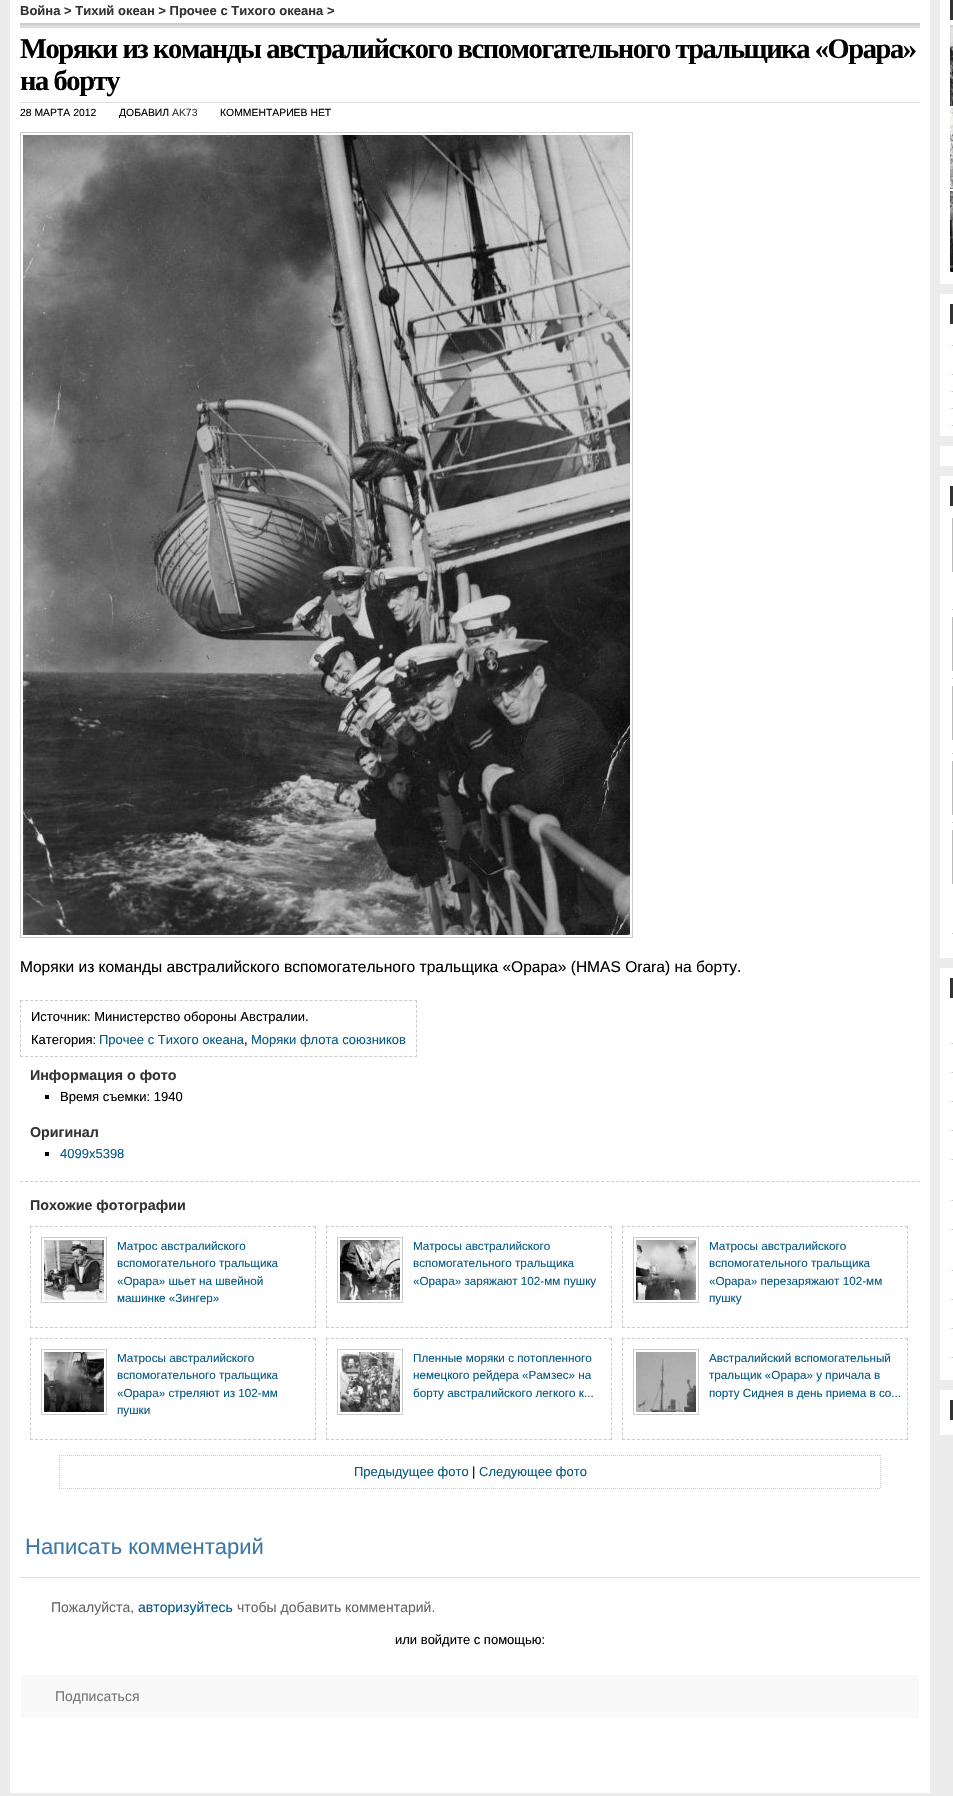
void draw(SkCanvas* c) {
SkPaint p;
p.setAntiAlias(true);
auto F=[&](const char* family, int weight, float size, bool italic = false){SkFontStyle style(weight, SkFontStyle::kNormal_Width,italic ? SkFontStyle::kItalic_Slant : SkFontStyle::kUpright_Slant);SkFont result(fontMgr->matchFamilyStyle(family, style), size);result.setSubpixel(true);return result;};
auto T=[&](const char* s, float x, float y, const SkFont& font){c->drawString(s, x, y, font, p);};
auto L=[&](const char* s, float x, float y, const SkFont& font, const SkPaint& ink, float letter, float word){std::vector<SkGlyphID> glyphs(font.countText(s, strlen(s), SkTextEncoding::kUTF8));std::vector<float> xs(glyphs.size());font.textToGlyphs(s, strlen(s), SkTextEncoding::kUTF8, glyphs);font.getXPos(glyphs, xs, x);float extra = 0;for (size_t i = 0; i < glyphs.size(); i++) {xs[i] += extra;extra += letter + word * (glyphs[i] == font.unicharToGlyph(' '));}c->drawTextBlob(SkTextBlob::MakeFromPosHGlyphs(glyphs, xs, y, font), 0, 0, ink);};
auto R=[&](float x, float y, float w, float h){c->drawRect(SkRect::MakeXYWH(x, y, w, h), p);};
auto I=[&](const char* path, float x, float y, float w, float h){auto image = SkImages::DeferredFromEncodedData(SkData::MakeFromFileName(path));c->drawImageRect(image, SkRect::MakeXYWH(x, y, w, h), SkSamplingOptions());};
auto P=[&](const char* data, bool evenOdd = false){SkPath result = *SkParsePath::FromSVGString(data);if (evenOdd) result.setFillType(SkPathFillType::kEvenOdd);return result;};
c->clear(0xffececec);
p.setColor(0xffffffff);
R(10,0,920,1793);
p.setColor(0xffcccccc);
R(20,23,900,2);
auto f1 = F("Liberation Sans",700,13);
p.setColor(0xff333333);
T("Война > Тихий океан > Прочее с Тихого океана >",20,15,f1);
p.setColor(0xffdddddd);
R(20,25,900,3);
R(20,102,900,1);
auto f2 = F("Liberation Serif",700,28.5);
p.setColor(0xff000000);
L("Моряки из команды австралийского вспомогательного тральщика «Орара»",20,58,f2,p,-1.43,0);
L("на борту",20,90,f2,p,-1.43,0);
auto f3 = F("Liberation Sans",400,10.4);
T("28 МАРТА 2012",20,116,f3);
T("ДОБАВИЛ",119,116,f3);
p.setColor(0xff333333);
T("AK73",172,116,f3);
p.setColor(0xff000000);
T("КОММЕНТАРИЕВ НЕТ",220,116,f3);
p.setStroke(true);
p.setStrokeWidth(1);
p.setColor(0xffcccccc);
c->drawRect(SkRect::MakeXYWH(20.5,132.5,612,805),p);
I("1.png",23,135,607,800);
auto f4 = F("Liberation Sans",400,15.55);
p.setStroke(false);
p.setColor(0xff000000);
T("Моряки из команды австралийского вспомогательного тральщика «Орара» (HMAS Orara) на борту.",20,972,f4);
p.setStroke(true);
p.setColor(0xffcccccc);
p.setPathEffect(SkDashPathEffect::Make({{3,1.99f}}, 0));
c->drawPath(P("M20 1000.5h397"),p);
p.setPathEffect(nullptr);
p.setPathEffect(SkDashPathEffect::Make({{3,1.91f}}, 0));
c->drawPath(P("M416.5 1000v57"),p);
p.setPathEffect(nullptr);
p.setPathEffect(SkDashPathEffect::Make({{3,1.99f}}, 0));
c->drawPath(P("M20 1056.5h397"),p);
p.setPathEffect(nullptr);
p.setPathEffect(SkDashPathEffect::Make({{3,1.91f}}, 0));
c->drawPath(P("M20.5 1000v57"),p);
p.setPathEffect(nullptr);
auto f5 = F("Liberation Sans",400,13);
p.setStroke(false);
p.setColor(0xff000000);
T("Источник: Министерство обороны Австралии.",31,1021,f5);
T("Категория:",31,1044,f5);
p.setColor(0xff055a85);
T("Прочее с Тихого океана",99,1044,f5);
p.setColor(0xff000000);
T(",",244,1044,f5);
p.setColor(0xff055a85);
T("Моряки флота союзников",251,1044,f5);
auto f6 = F("Liberation Sans",700,14.25);
p.setColor(0xff333333);
T("Информация о фото",30,1080,f6);
p.setColor(0xff000000);
R(45,1095,4,4);
T("Время съемки: 1940",60,1101,f5);
p.setColor(0xff333333);
T("Оригинал",30,1137,f6);
p.setColor(0xff000000);
R(45,1152,4,4);
p.setColor(0xff055a85);
T("4099x5398",60,1158,f5);
p.setStroke(true);
p.setColor(0xffcccccc);
p.setPathEffect(SkDashPathEffect::Make({{3,2.01f}}, 0));
c->drawPath(P("M20 1181.5h900"),p);
p.setPathEffect(nullptr);
p.setStroke(false);
p.setColor(0xff333333);
T("Похожие фотографии",30,1210,f6);
p.setStroke(true);
p.setColor(0xffcccccc);
p.setPathEffect(SkDashPathEffect::Make({{3,1.96f}}, 0));
c->drawPath(P("M30 1226.5h286"),p);
p.setPathEffect(nullptr);
p.setPathEffect(SkDashPathEffect::Make({{3,1.95f}}, 0));
c->drawPath(P("M315.5 1226v102"),p);
p.setPathEffect(nullptr);
p.setPathEffect(SkDashPathEffect::Make({{3,1.96f}}, 0));
c->drawPath(P("M30 1327.5h286"),p);
p.setPathEffect(nullptr);
p.setPathEffect(SkDashPathEffect::Make({{3,1.95f}}, 0));
c->drawPath(P("M30.5 1226v102"),p);
p.setPathEffect(nullptr);
c->drawRect(SkRect::MakeXYWH(41.5,1237.5,65,65),p);
I("2.png",44,1240,60,60);
auto f7 = F("Liberation Sans",400,11.7);
p.setStroke(false);
p.setColor(0xff055a85);
T("Матрос австралийского",117,1250,f7);
T("вспомогательного тральщика",117,1267,f7);
T("«Орара» шьет на швейной",117,1285,f7);
T("машинке «Зингер»",117,1302,f7);
p.setStroke(true);
p.setColor(0xffcccccc);
p.setPathEffect(SkDashPathEffect::Make({{3,1.96f}}, 0));
c->drawPath(P("M326 1226.5h286"),p);
p.setPathEffect(nullptr);
p.setPathEffect(SkDashPathEffect::Make({{3,1.95f}}, 0));
c->drawPath(P("M611.5 1226v102"),p);
p.setPathEffect(nullptr);
p.setPathEffect(SkDashPathEffect::Make({{3,1.96f}}, 0));
c->drawPath(P("M326 1327.5h286"),p);
p.setPathEffect(nullptr);
p.setPathEffect(SkDashPathEffect::Make({{3,1.95f}}, 0));
c->drawPath(P("M326.5 1226v102"),p);
p.setPathEffect(nullptr);
c->drawRect(SkRect::MakeXYWH(337.5,1237.5,65,65),p);
I("3.png",340,1240,60,60);
p.setStroke(false);
p.setColor(0xff055a85);
T("Матросы австралийского",413,1250,f7);
T("вспомогательного тральщика",413,1267,f7);
T("«Орара» заряжают 102-мм пушку",413,1285,f7);
p.setStroke(true);
p.setColor(0xffcccccc);
p.setPathEffect(SkDashPathEffect::Make({{3,1.96f}}, 0));
c->drawPath(P("M622 1226.5h286"),p);
p.setPathEffect(nullptr);
p.setPathEffect(SkDashPathEffect::Make({{3,1.95f}}, 0));
c->drawPath(P("M907.5 1226v102"),p);
p.setPathEffect(nullptr);
p.setPathEffect(SkDashPathEffect::Make({{3,1.96f}}, 0));
c->drawPath(P("M622 1327.5h286"),p);
p.setPathEffect(nullptr);
p.setPathEffect(SkDashPathEffect::Make({{3,1.95f}}, 0));
c->drawPath(P("M622.5 1226v102"),p);
p.setPathEffect(nullptr);
c->drawRect(SkRect::MakeXYWH(633.5,1237.5,65,65),p);
I("4.png",636,1240,60,60);
p.setStroke(false);
p.setColor(0xff055a85);
T("Матросы австралийского",709,1250,f7);
T("вспомогательного тральщика",709,1267,f7);
T("«Орара» перезаряжают 102-мм",709,1285,f7);
T("пушку",709,1302,f7);
p.setStroke(true);
p.setColor(0xffcccccc);
p.setPathEffect(SkDashPathEffect::Make({{3,1.96f}}, 0));
c->drawPath(P("M30 1338.5h286"),p);
p.setPathEffect(nullptr);
p.setPathEffect(SkDashPathEffect::Make({{3,1.95f}}, 0));
c->drawPath(P("M315.5 1338v102"),p);
p.setPathEffect(nullptr);
p.setPathEffect(SkDashPathEffect::Make({{3,1.96f}}, 0));
c->drawPath(P("M30 1439.5h286"),p);
p.setPathEffect(nullptr);
p.setPathEffect(SkDashPathEffect::Make({{3,1.95f}}, 0));
c->drawPath(P("M30.5 1338v102"),p);
p.setPathEffect(nullptr);
c->drawRect(SkRect::MakeXYWH(41.5,1349.5,65,65),p);
I("5.png",44,1352,60,60);
p.setStroke(false);
p.setColor(0xff055a85);
T("Матросы австралийского",117,1362,f7);
T("вспомогательного тральщика",117,1379,f7);
T("«Орара» стреляют из 102-мм",117,1397,f7);
T("пушки",117,1414,f7);
p.setStroke(true);
p.setColor(0xffcccccc);
p.setPathEffect(SkDashPathEffect::Make({{3,1.96f}}, 0));
c->drawPath(P("M326 1338.5h286"),p);
p.setPathEffect(nullptr);
p.setPathEffect(SkDashPathEffect::Make({{3,1.95f}}, 0));
c->drawPath(P("M611.5 1338v102"),p);
p.setPathEffect(nullptr);
p.setPathEffect(SkDashPathEffect::Make({{3,1.96f}}, 0));
c->drawPath(P("M326 1439.5h286"),p);
p.setPathEffect(nullptr);
p.setPathEffect(SkDashPathEffect::Make({{3,1.95f}}, 0));
c->drawPath(P("M326.5 1338v102"),p);
p.setPathEffect(nullptr);
c->drawRect(SkRect::MakeXYWH(337.5,1349.5,65,65),p);
I("6.png",340,1352,60,60);
p.setStroke(false);
p.setColor(0xff055a85);
T("Пленные моряки с потопленного",413,1362,f7);
T("немецкого рейдера «Рамзес» на",413,1379,f7);
T("борту австралийского легкого к...",413,1397,f7);
p.setStroke(true);
p.setColor(0xffcccccc);
p.setPathEffect(SkDashPathEffect::Make({{3,1.96f}}, 0));
c->drawPath(P("M622 1338.5h286"),p);
p.setPathEffect(nullptr);
p.setPathEffect(SkDashPathEffect::Make({{3,1.95f}}, 0));
c->drawPath(P("M907.5 1338v102"),p);
p.setPathEffect(nullptr);
p.setPathEffect(SkDashPathEffect::Make({{3,1.96f}}, 0));
c->drawPath(P("M622 1439.5h286"),p);
p.setPathEffect(nullptr);
p.setPathEffect(SkDashPathEffect::Make({{3,1.95f}}, 0));
c->drawPath(P("M622.5 1338v102"),p);
p.setPathEffect(nullptr);
c->drawRect(SkRect::MakeXYWH(633.5,1349.5,65,65),p);
I("7.png",636,1352,60,60);
p.setStroke(false);
p.setColor(0xff055a85);
T("Австралийский вспомогательный",709,1362,f7);
T("тральщик «Орара» у причала в",709,1379,f7);
T("порту Сиднея в день приема в со...",709,1397,f7);
p.setStroke(true);
p.setColor(0xffcccccc);
p.setPathEffect(SkDashPathEffect::Make({{1,1}}, 0));
c->drawPath(P("M59 1455.5h822"),p);
p.setPathEffect(nullptr);
p.setPathEffect(SkDashPathEffect::Make({{1,1}}, 0));
c->drawPath(P("M880.5 1455v34"),p);
p.setPathEffect(nullptr);
p.setPathEffect(SkDashPathEffect::Make({{1,1}}, 0));
c->drawPath(P("M59 1488.5h822"),p);
p.setPathEffect(nullptr);
p.setPathEffect(SkDashPathEffect::Make({{1,1}}, 0));
c->drawPath(P("M59.5 1455v34"),p);
p.setPathEffect(nullptr);
p.setStroke(false);
p.setColor(0xff055a85);
T("Предыдущее фото",354,1476,f5);
p.setColor(0xff000000);
T("|",472,1476,f5);
p.setColor(0xff055a85);
T("Следующее фото",479,1476,f5);
auto f8 = F("Liberation Sans",400,22);
p.setColor(0xff3c78a7);
T("Написать комментарий",25,1554,f8);
p.setColor(0xffdddddd);
R(20,1577,900,1);
auto f9 = F("Liberation Sans",400,14);
p.setColor(0xff666666);
T("Пожалуйста,",51,1612,f9);
p.setColor(0xff055a85);
T("авторизуйтесь",138,1612,f9);
p.setColor(0xff666666);
T("чтобы добавить комментарий.",237,1612,f9);
p.setColor(0xff000000);
T("или войдите с помощью:",395,1644,f5);
p.setColor(0xfff9f9f9);
R(21,1675,898,43);
p.setColor(0xff777777);
T("Подписаться",55,1701,f9);
p.setColor(0xffffffff);
R(940,0,13,284);
p.setColor(0xff333333);
R(950,0,3,20);
I("8.png",950,25,3,81);
I("9.png",950,108,3,81);
I("10.png",950,191,3,81);
p.setColor(0xffffffff);
R(940,294,13,142);
p.setColor(0xff333333);
R(950,304,3,20);
p.setStroke(true);
p.setColor(0xffcccccc);
p.setPathEffect(SkDashPathEffect::Make({{1,1}}, 0));
c->drawPath(P("M950 345.5h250m-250 29h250m-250 17h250"),p);
p.setPathEffect(nullptr);
p.setPathEffect(SkDashPathEffect::Make({{1,1}}, 0));
c->drawPath(P("M950 408.5h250m-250 17h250"),p);
p.setPathEffect(nullptr);
p.setStroke(false);
p.setColor(0xffffffff);
R(940,446,13,20);
R(940,476,13,482);
p.setColor(0xff333333);
R(950,486,3,20);
p.setStroke(true);
p.setColor(0xffcccccc);
p.setPathEffect(SkDashPathEffect::Make({{3,2.08f}}, 0));
c->drawPath(P("M952 609.5h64"),p);
p.setPathEffect(nullptr);
p.setColor(0xffbbbbbb);
c->drawRect(SkRect::MakeXYWH(952.5,518.5,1,53),p);
p.setColor(0xffcccccc);
p.setPathEffect(SkDashPathEffect::Make({{3,2.08f}}, 0));
c->drawPath(P("M952 678.5h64"),p);
p.setPathEffect(nullptr);
p.setColor(0xffbbbbbb);
c->drawRect(SkRect::MakeXYWH(952.5,617.5,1,53),p);
p.setColor(0xffcccccc);
p.setPathEffect(SkDashPathEffect::Make({{3,2.08f}}, 0));
c->drawPath(P("M952 753.5h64"),p);
p.setPathEffect(nullptr);
p.setColor(0xffbbbbbb);
c->drawRect(SkRect::MakeXYWH(952.5,686.5,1,53),p);
p.setColor(0xffcccccc);
p.setPathEffect(SkDashPathEffect::Make({{3,2.08f}}, 0));
c->drawPath(P("M952 822.5h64"),p);
p.setPathEffect(nullptr);
p.setColor(0xffbbbbbb);
c->drawRect(SkRect::MakeXYWH(952.5,761.5,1,53),p);
p.setColor(0xffcccccc);
p.setPathEffect(SkDashPathEffect::Make({{3,2.08f}}, 0));
c->drawPath(P("M952 933.5h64"),p);
p.setPathEffect(nullptr);
p.setColor(0xffbbbbbb);
c->drawRect(SkRect::MakeXYWH(952.5,830.5,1,53),p);
p.setStroke(false);
p.setColor(0xffffffff);
R(940,968,13,412);
p.setColor(0xff333333);
R(950,978,3,20);
p.setStroke(true);
p.setColor(0xffcccccc);
p.setPathEffect(SkDashPathEffect::Make({{1,1}}, 0));
c->drawPath(P("M950 1043.5h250m-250 29h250m-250 29h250"),p);
p.setPathEffect(nullptr);
p.setPathEffect(SkDashPathEffect::Make({{1,1}}, 0));
c->drawPath(P("M950 1130.5h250m-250 29h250"),p);
p.setPathEffect(nullptr);
p.setPathEffect(SkDashPathEffect::Make({{1,1}}, 0));
c->drawPath(P("M950 1200.5h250m-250 29h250"),p);
p.setPathEffect(nullptr);
p.setPathEffect(SkDashPathEffect::Make({{1,1}}, 0));
c->drawPath(P("M950 1270.5h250m-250 29h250m-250 29h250"),p);
p.setPathEffect(nullptr);
p.setPathEffect(SkDashPathEffect::Make({{1,1}}, 0));
c->drawPath(P("M950 1357.5h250"),p);
p.setPathEffect(nullptr);
p.setStroke(false);
p.setColor(0xffffffff);
R(940,1390,13,45);
p.setColor(0xff333333);
R(950,1400,3,20);
}
